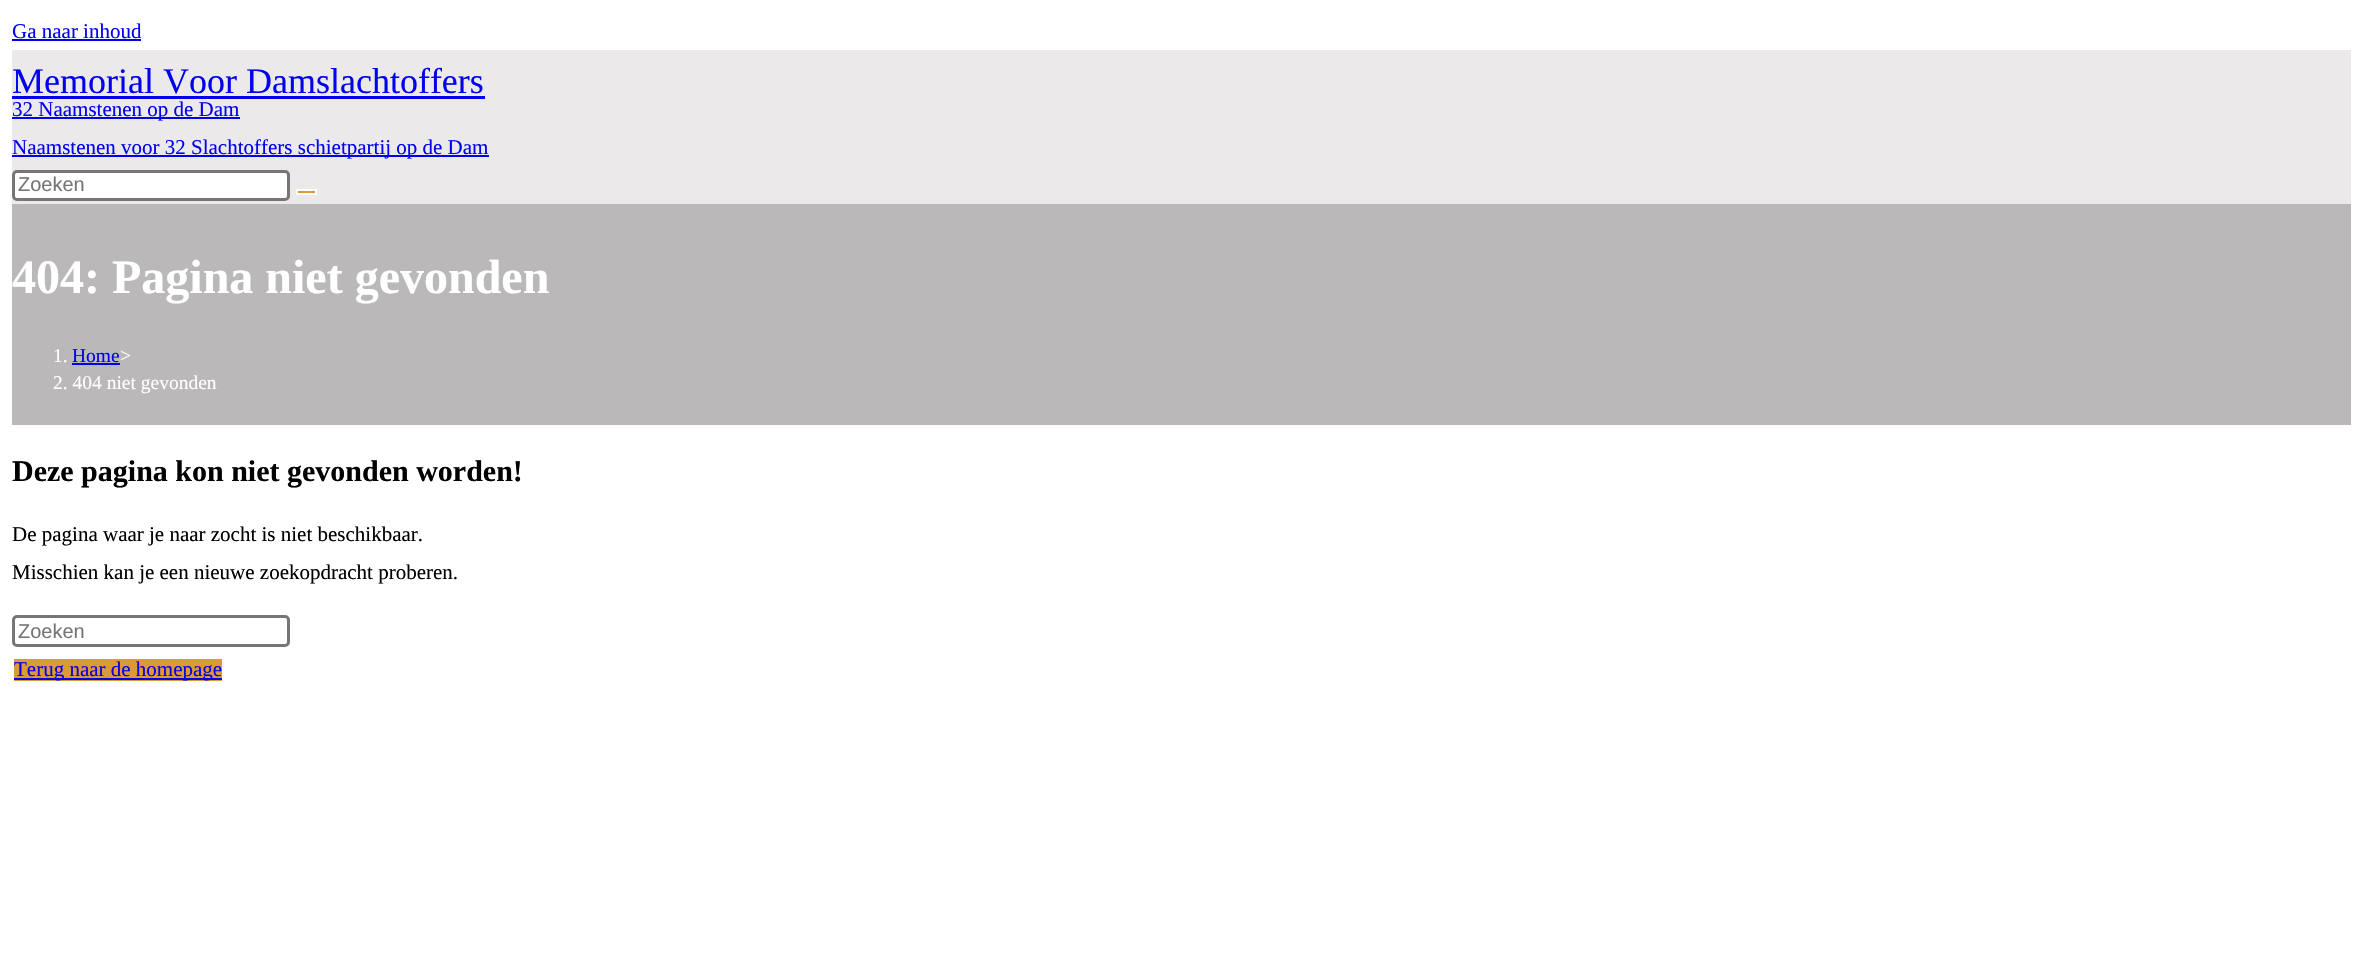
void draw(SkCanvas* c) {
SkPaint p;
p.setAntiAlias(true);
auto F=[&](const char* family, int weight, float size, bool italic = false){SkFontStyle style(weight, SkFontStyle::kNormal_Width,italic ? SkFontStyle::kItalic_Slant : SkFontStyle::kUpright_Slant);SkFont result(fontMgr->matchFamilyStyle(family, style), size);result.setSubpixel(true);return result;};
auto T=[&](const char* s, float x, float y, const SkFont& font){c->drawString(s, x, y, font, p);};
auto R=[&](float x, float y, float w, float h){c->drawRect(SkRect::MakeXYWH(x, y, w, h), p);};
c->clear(0xffffffff);
auto f1 = F("Liberation Serif",400,21);
p.setColor(0xff0000ee);
T("Ga naar inhoud",12,38,f1);
R(12,39,129,2);
p.setColor(0xffebe9e9);
R(12,50,2339,154);
auto f2 = F("Liberation Serif",400,36);
p.setColor(0xff0000ee);
T("Memorial Voor Damslachtoffers",12,93,f2);
R(12,96,473,3);
R(12,117,228,2);
T("32 Naamstenen op de Dam",12,116,f1);
R(12,155,477,2);
T("Naamstenen voor 32 Slachtoffers schietpartij op de Dam",12,154,f1);
p.setColor(0xffffffff);
c->drawRoundRect(SkRect::MakeXYWH(13.5,171.5,275,28),3.5,3.5,p);
p.setStroke(true);
p.setStrokeWidth(3);
p.setColor(0xff767676);
c->drawRoundRect(SkRect::MakeXYWH(13.5,171.5,275,28),3.5,3.5,p);
auto f3 = F("Liberation Sans",400,20);
p.setStroke(false);
p.setColor(0xff757575);
T("Zoeken",18,191,f3);
p.setColor(0xffdd9933);
c->drawRect(SkRect::MakeXYWH(297,190,19,4),p);
p.setStroke(true);
p.setStrokeWidth(2);
p.setColor(0xffffffff);
c->drawRect(SkRect::MakeXYWH(297,190,19,4),p);
p.setStroke(false);
p.setColor(0xffbab8b8);
R(12,204,2339,221);
auto f4 = F("Liberation Serif",700,48);
p.setColor(0xffffffff);
T("404: Pagina niet gevonden",12,293,f4);
auto f5 = F("Liberation Serif",400,19.5);
T("1.",53,362,f5);
p.setColor(0xff0000ee);
T("Home",72,362,f5);
R(72,363,48,2);
p.setColor(0xffffffff);
T(">",120,362,f5);
T("2. 404 niet gevonden",53,389,f5);
auto f6 = F("Liberation Serif",700,30);
p.setColor(0xff000000);
T("Deze pagina kon niet gevonden worden!",12,481,f6);
T("De pagina waar je naar zocht is niet beschikbaar.",12,541,f1);
T("Misschien kan je een nieuwe zoekopdracht proberen.",12,579,f1);
p.setStroke(true);
p.setStrokeWidth(3);
p.setColor(0xff767676);
c->drawRoundRect(SkRect::MakeXYWH(13.5,616.5,275,29),3.5,3.5,p);
p.setStroke(false);
p.setColor(0xff757575);
T("Zoeken",18,638,f3);
p.setColor(0xffdd9933);
R(14,659,208,22);
p.setColor(0xff0000ee);
R(14,678,208,2);
T("Terug naar de homepage",14,676,f1);
}
